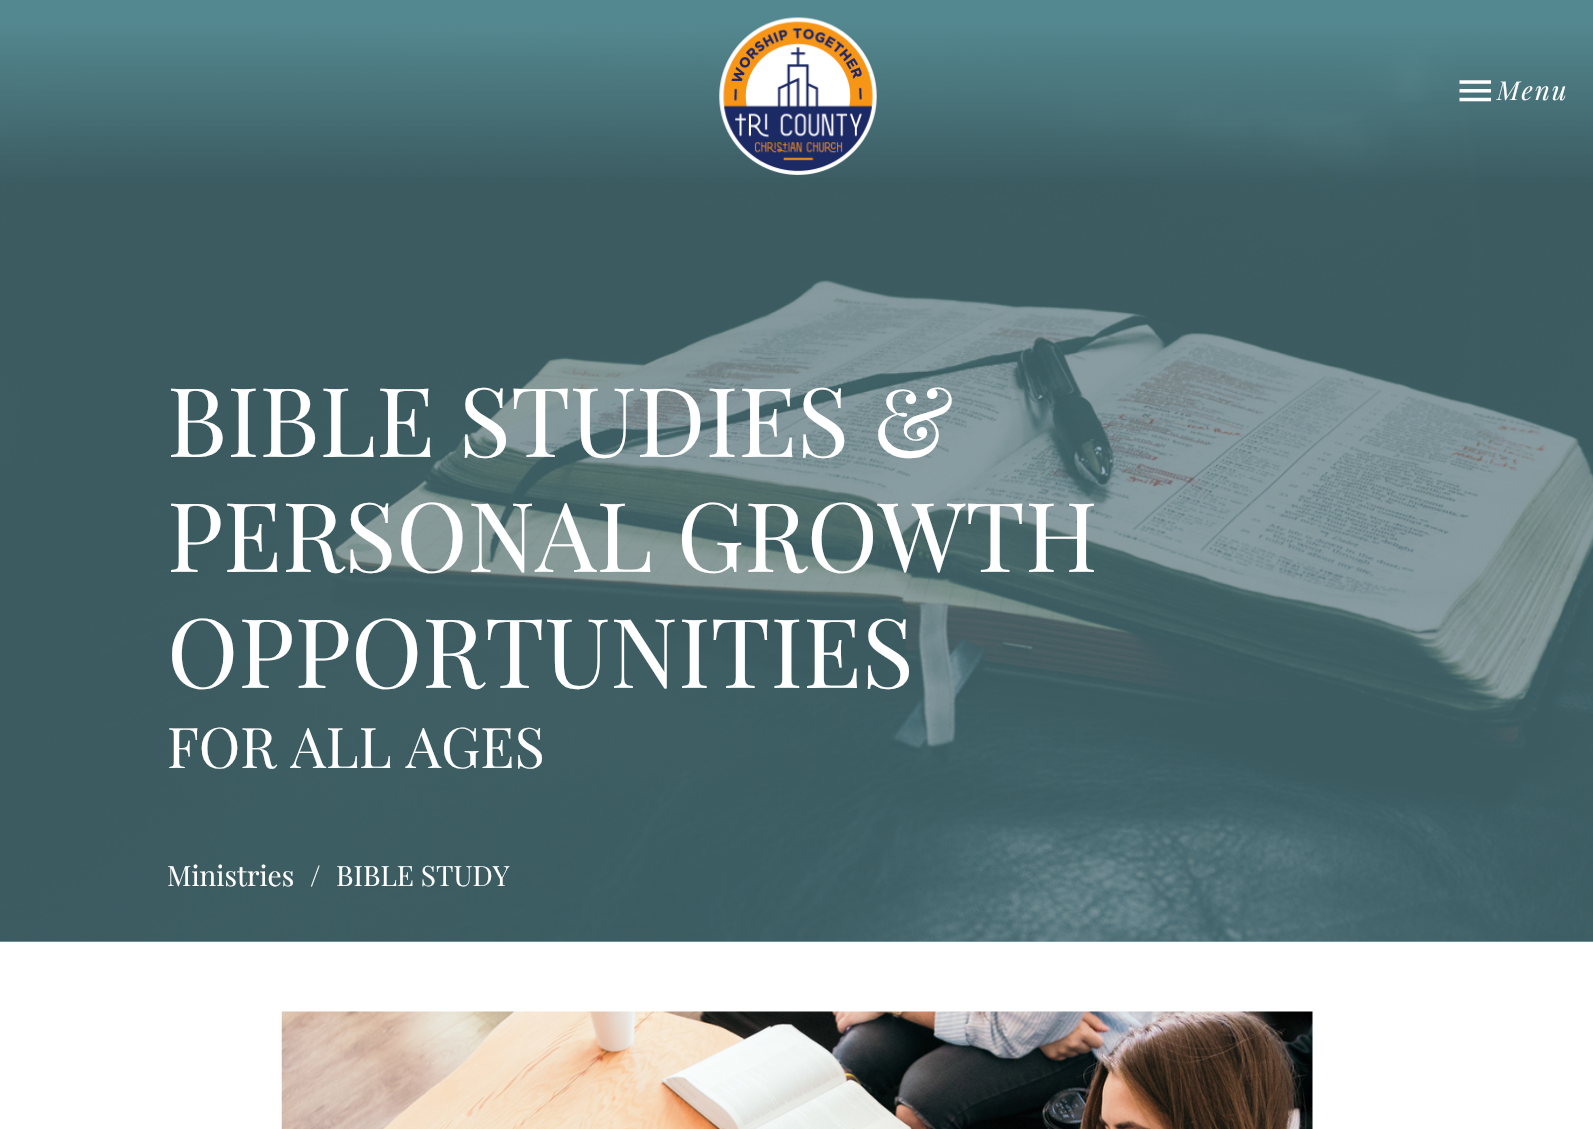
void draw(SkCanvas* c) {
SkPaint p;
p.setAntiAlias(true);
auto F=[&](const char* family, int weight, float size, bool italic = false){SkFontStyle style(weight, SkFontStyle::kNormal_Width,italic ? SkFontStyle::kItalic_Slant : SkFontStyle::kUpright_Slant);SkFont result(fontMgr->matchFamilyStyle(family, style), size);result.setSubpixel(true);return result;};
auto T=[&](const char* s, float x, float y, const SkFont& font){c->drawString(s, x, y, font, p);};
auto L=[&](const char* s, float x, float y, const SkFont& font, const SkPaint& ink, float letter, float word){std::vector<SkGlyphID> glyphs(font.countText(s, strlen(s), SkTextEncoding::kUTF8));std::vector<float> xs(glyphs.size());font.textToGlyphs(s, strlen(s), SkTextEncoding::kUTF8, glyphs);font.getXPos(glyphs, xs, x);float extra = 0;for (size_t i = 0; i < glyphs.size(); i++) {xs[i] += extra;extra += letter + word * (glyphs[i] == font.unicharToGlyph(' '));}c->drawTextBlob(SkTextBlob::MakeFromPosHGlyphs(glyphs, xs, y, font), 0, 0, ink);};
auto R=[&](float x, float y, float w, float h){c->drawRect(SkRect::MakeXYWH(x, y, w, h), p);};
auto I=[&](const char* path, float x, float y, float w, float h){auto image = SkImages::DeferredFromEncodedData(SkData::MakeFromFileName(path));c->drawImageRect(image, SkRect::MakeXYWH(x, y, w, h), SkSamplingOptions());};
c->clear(0xffffffff);
p.setColor(0xff9cbabf);
R(0,941,1593,1);
I("3.png",0,0,1593,942);
I("1.png",719,17,158,158);
I("2.png",1459,80,32,22);
auto f1 = F("Playfair Display",400,26,true);
p.setColor(0xffffffff);
L("Menu",1497,100,f1,p,2,0);
auto f2 = F("Playfair Display",400,96.25);
T("BIBLE STUDIES &",167,457,f2);
T("PERSONAL GROWTH",167,572,f2);
T("OPPORTUNITIES",167,688,f2);
auto f3 = F("Playfair Display",400,56);
T("FOR ALL AGES",167,768,f3);
auto f4 = F("Playfair Display",400,28);
T("Ministries",167,886,f4);
T("/",310,886,f4);
T("BIBLE STUDY",336,886,f4);
I("4.png",281,1011,1032,118);
}
